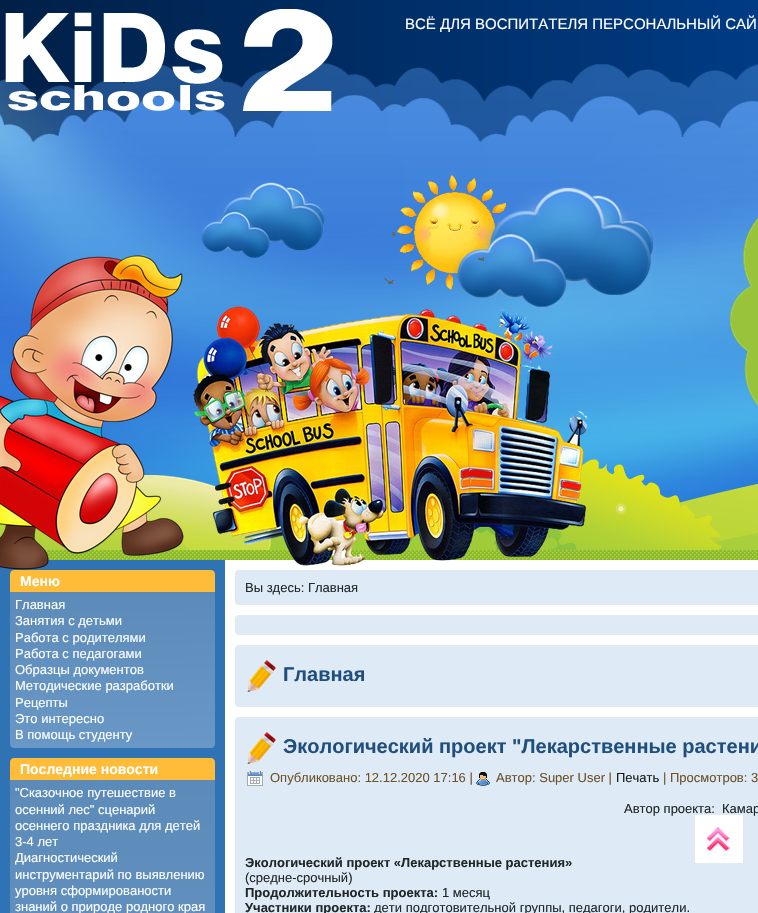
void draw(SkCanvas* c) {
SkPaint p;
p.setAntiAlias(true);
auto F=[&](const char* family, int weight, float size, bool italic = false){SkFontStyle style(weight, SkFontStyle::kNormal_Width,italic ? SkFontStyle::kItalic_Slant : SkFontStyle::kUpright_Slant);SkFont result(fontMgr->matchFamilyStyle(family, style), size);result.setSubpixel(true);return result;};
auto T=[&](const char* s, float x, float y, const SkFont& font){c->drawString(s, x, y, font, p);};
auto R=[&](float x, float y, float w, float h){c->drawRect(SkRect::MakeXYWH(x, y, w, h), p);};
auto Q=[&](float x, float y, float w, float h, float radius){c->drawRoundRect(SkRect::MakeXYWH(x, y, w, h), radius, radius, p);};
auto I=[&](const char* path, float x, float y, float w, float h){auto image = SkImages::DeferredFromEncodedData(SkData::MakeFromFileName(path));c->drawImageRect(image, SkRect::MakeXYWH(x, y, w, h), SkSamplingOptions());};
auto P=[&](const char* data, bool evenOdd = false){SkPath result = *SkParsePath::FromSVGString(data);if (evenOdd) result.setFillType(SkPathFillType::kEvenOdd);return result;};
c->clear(0xffffffff);
I("1.png",44,550,714,10);
I("2.png",0,63,758,440);
I("4.png",0,0,758,142);
I("3.png",5,9,328,102);
auto f1 = F("Liberation Sans",400,15);
p.setColor(0xffffffff);
T("ВСЁ ДЛЯ ВОСПИТАТЕЛЯ ПЕРСОНАЛЬНЫЙ САЙ",405,29,f1);
I("5.png",201,182,124,76);
I("6.png",397,175,109,115);
I("7.png",452,187,204,120);
I("8.png",730,218,28,188);
I("9.png",384,232,100,52);
I("11.png",269,459,489,91);
I("10.png",0,475,271,75);
p.setColor(0xff3073b5);
R(0,560,225,353);
I("12.png",0,254,184,316);
I("13.png",193,306,395,260);
p.setColor(0xfffebc39);
c->drawPath(P("M14 570h197c2 0 4 2 4 4v18h-205v-18c0-2 2-4 4-4z"),p);
auto f2 = F("Liberation Sans",700,14);
p.setColor(0xffffffff);
T("Меню",20,586,f2);
{
const SkColor colors[] = {0xff5c8bba,0xff6998c6};
const float stops[] = {0,1};
const SkPoint ends[] = {{112,592}, {113,748}};
p.setShader(SkGradientShader::MakeLinear(ends, colors, stops, 2, SkTileMode::kClamp));
p.setAlpha(255);
}
c->drawPath(P("M10 592h205v152c0 2-2 4-4 4h-197c-2 0-4-2-4-4z"),p);
auto f3 = F("Liberation Sans",400,13);
p.setShader(nullptr);
p.setColor(0xffffffff);
T("Главная",15,609,f3);
T("Занятия с детьми",15,625,f3);
T("Работа с родителями",15,642,f3);
T("Работа с педагогами",15,658,f3);
T("Образцы документов",15,674,f3);
T("Методические разработки",15,690,f3);
T("Рецепты",15,707,f3);
T("Это интересно",15,723,f3);
T("В помощь студенту",15,739,f3);
p.setColor(0xfffebc39);
c->drawPath(P("M14 758h197c2 0 4 2 4 4v18h-205v-18c0-2 2-4 4-4z"),p);
p.setColor(0xffffffff);
T("Последние новости",20,774,f2);
{
const SkColor colors[] = {0xff5c8bba,0xff6998c6};
const float stops[] = {0,1};
const SkPoint ends[] = {{112,780}, {113,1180}};
p.setShader(SkGradientShader::MakeLinear(ends, colors, stops, 2, SkTileMode::kClamp));
p.setAlpha(255);
}
R(10,780,205,133);
p.setShader(nullptr);
p.setColor(0xffffffff);
T("\"Сказочное путешествие в",15,797,f3);
T("осенний лес\" сценарий",15,814,f3);
T("осеннего праздника для детей",15,830,f3);
T("3-4 лет",15,846,f3);
T("Диагностический",15,862,f3);
T("инструментарий по выявлению",15,879,f3);
T("уровня сформированости",15,895,f3);
T("знаний о природе родного края",15,911,f3);
p.setColor(0xffdeeaf6);
Q(235,570,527,35,4);
p.setColor(0xff212727);
T("Вы здесь: Главная",245,592,f3);
p.setColor(0xffdeeaf6);
Q(235,615,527,20,4);
Q(235,645,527,62,4);
I("14.png",247,660,29,32);
auto f4 = F("Liberation Sans",700,20);
p.setColor(0xff214f7d);
T("Главная",283,681,f4);
p.setColor(0xffdeebf7);
Q(235,717,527,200,4);
I("15.png",247,732,29,32);
p.setColor(0xff214f7d);
T("Экологический проект \"Лекарственные растени",283,753,f4);
I("16.png",247,771,16,15);
p.setColor(0xff6c5128);
T("Опубликовано: 12.12.2020 17:16 |",270,782,f3);
I("17.png",476,772,14,14);
T("Автор: Super User |",496,782,f3);
p.setColor(0xff171c1c);
T("Печать",616,782,f3);
p.setColor(0xff6c5128);
T("| Просмотров: 3",663,782,f3);
p.setColor(0xff212727);
T("Автор проекта:  Камар",624,813,f3);
auto f5 = F("Liberation Sans",700,13);
T("Экологический проект «Лекарственные растения»",245,867,f5);
T("(средне-срочный)",245,882,f3);
T("Продолжительность проекта:",245,897,f5);
T("1 месяц",442,897,f3);
T("Участники проекта:",245,912,f5);
T("дети подготовительной группы, педагоги, родители.",374,912,f3);
p.setColor(0xffffffff);
R(695,815,48,48);
I("18.png",707,827,23,24);
}
